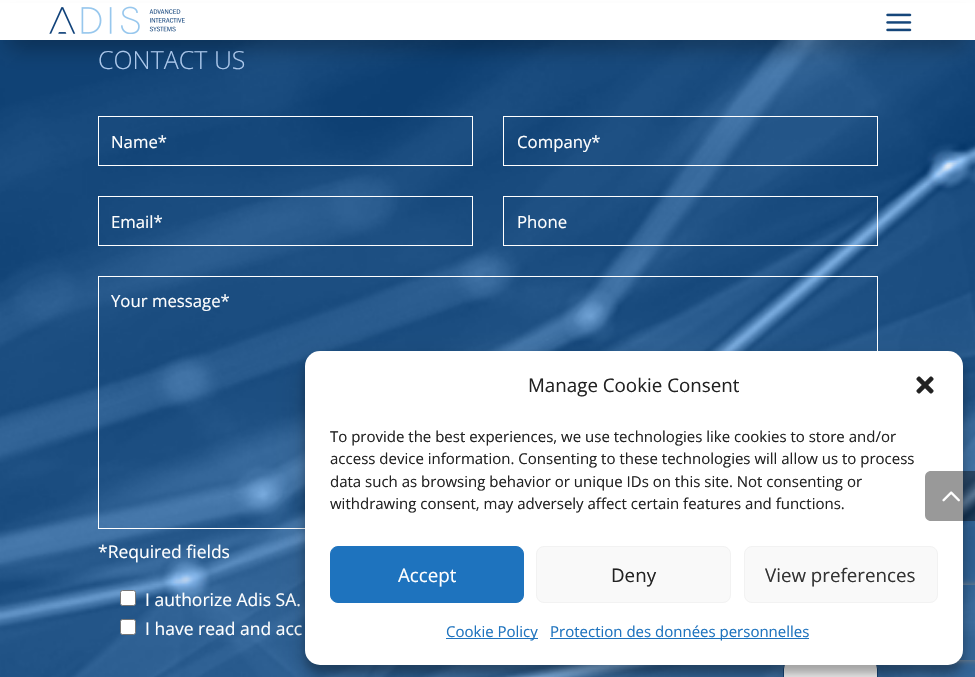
void draw(SkCanvas* c) {
SkPaint p;
p.setAntiAlias(true);
auto F=[&](const char* family, int weight, float size, bool italic = false){SkFontStyle style(weight, SkFontStyle::kNormal_Width,italic ? SkFontStyle::kItalic_Slant : SkFontStyle::kUpright_Slant);SkFont result(fontMgr->matchFamilyStyle(family, style), size);result.setSubpixel(true);return result;};
auto T=[&](const char* s, float x, float y, const SkFont& font){c->drawString(s, x, y, font, p);};
auto R=[&](float x, float y, float w, float h){c->drawRect(SkRect::MakeXYWH(x, y, w, h), p);};
auto Q=[&](float x, float y, float w, float h, float radius){c->drawRoundRect(SkRect::MakeXYWH(x, y, w, h), radius, radius, p);};
auto I=[&](const char* path, float x, float y, float w, float h){auto image = SkImages::DeferredFromEncodedData(SkData::MakeFromFileName(path));c->drawImageRect(image, SkRect::MakeXYWH(x, y, w, h), SkSamplingOptions());};
auto P=[&](const char* data, bool evenOdd = false){SkPath result = *SkParsePath::FromSVGString(data);if (evenOdd) result.setFillType(SkPathFillType::kEvenOdd);return result;};
c->clear(0xffffffff);
I("3.png",0,40,975,637);
p.setColor(0x4d000000);
p.setMaskFilter(SkMaskFilter::MakeBlur(kNormal_SkBlurStyle, 11));
c->drawRect(SkRect::MakeXYWH(8,23,960,25),p);
p.setMaskFilter(nullptr);
p.setColor(0xffffffff);
R(0,3,975,37);
I("1.png",49,6,136,28);
I("2.png",886,13,26,19);
auto f1 = F("Open Sans",300,25);
p.setColor(0xffacc8eb);
T("CONTACT US",98,69,f1);
p.setStroke(true);
p.setStrokeWidth(1);
p.setColor(0xffffffff);
c->drawRect(SkRect::MakeXYWH(98.5,116.5,374,49),p);
auto f2 = F("Open Sans",400,16.75);
p.setStroke(false);
T("Name*",111,148,f2);
p.setStroke(true);
c->drawRect(SkRect::MakeXYWH(503.5,116.5,374,49),p);
p.setStroke(false);
T("Company*",517,148,f2);
p.setStroke(true);
c->drawRect(SkRect::MakeXYWH(98.5,196.5,374,49),p);
p.setStroke(false);
T("Email*",111,228,f2);
p.setStroke(true);
c->drawRect(SkRect::MakeXYWH(503.5,196.5,374,49),p);
p.setStroke(false);
T("Phone",517,228,f2);
p.setStroke(true);
c->drawRect(SkRect::MakeXYWH(98.5,276.5,779,252),p);
p.setStroke(false);
T("Your message*",111,307,f2);
auto f3 = F("Open Sans",400,17.5);
T("*Required fields",98,558,f3);
c->drawRoundRect(SkRect::MakeXYWH(120.5,590.5,15,15),2,2,p);
p.setStroke(true);
p.setColor(0xff767676);
c->drawRoundRect(SkRect::MakeXYWH(120.5,590.5,15,15),2,2,p);
p.setStroke(false);
p.setColor(0xffffffff);
T("I authorize Adis SA.",145,606,f3);
c->drawRoundRect(SkRect::MakeXYWH(120.5,619.5,15,15),2,2,p);
p.setStroke(true);
p.setColor(0xff767676);
c->drawRoundRect(SkRect::MakeXYWH(120.5,619.5,15,15),2,2,p);
p.setStroke(false);
p.setColor(0xffffffff);
T("I have read and acc",145,635,f3);
c->drawRoundRect(SkRect::MakeXYWH(783.5,656.5,94,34),12.5,12.5,p);
p.setStroke(true);
p.setColor(0xff15467a);
c->drawRoundRect(SkRect::MakeXYWH(783.5,656.5,94,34),12.5,12.5,p);
p.setStroke(false);
p.setColor(0x3b000000);
p.setMaskFilter(SkMaskFilter::MakeBlur(kNormal_SkBlurStyle, 4));
c->drawRoundRect(SkRect::MakeXYWH(305,359,658,314),15,15,p);
p.setMaskFilter(nullptr);
p.setColor(0x30000000);
p.setMaskFilter(SkMaskFilter::MakeBlur(kNormal_SkBlurStyle, 12.5));
c->drawRoundRect(SkRect::MakeXYWH(305,364,658,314),15,15,p);
p.setMaskFilter(nullptr);
c->save();
c->clipPath(P("M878 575h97v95h-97zm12.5 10h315c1.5 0 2.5 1 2.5 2.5v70c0 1.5-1 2.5-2.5 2.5h-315c-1.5 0-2.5-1-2.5-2.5v-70c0-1.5 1-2.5 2.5-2.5z",true),true);
p.setColor(0xff808080);
p.setMaskFilter(SkMaskFilter::MakeBlur(kNormal_SkBlurStyle, 3));
c->drawRoundRect(SkRect::MakeXYWH(888,585,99,75),2.5,2.5,p);
p.setMaskFilter(nullptr);
c->restore();
p.setColor(0xffffffff);
Q(305,351,658,314,15);
auto f4 = F("Open Sans",400,18.75);
p.setColor(0xff222222);
T("Manage Cookie Consent",528,392,f4);
I("4.png",916,376,18,18);
auto f5 = F("Open Sans",400,15);
T("To provide the best experiences, we use technologies like cookies to store and/or",330,442,f5);
T("access device information. Consenting to these technologies will allow us to process",330,464,f5);
T("data such as browsing behavior or unique IDs on this site. Not consenting or",330,487,f5);
T("withdrawing consent, may adversely affect certain features and functions.",330,509,f5);
p.setColor(0xff1e73be);
c->drawRoundRect(SkRect::MakeXYWH(330.5,546.5,193,56),7.5,7.5,p);
p.setStroke(true);
c->drawRoundRect(SkRect::MakeXYWH(330.5,546.5,193,56),7.5,7.5,p);
p.setStroke(false);
p.setColor(0xffffffff);
T("Accept",398,582,f4);
p.setColor(0xfff9f9f9);
c->drawRoundRect(SkRect::MakeXYWH(536.5,546.5,194,56),7.5,7.5,p);
p.setStroke(true);
p.setColor(0xfff2f2f2);
c->drawRoundRect(SkRect::MakeXYWH(536.5,546.5,194,56),7.5,7.5,p);
p.setStroke(false);
p.setColor(0xff222222);
T("Deny",611,582,f4);
p.setColor(0xfff9f9f9);
c->drawRoundRect(SkRect::MakeXYWH(744.5,546.5,193,56),7.5,7.5,p);
p.setStroke(true);
p.setColor(0xfff2f2f2);
c->drawRoundRect(SkRect::MakeXYWH(744.5,546.5,193,56),7.5,7.5,p);
p.setStroke(false);
p.setColor(0xff333333);
T("View preferences",765,582,f4);
p.setColor(0xff1e73be);
R(446,638,92,1);
T("Cookie Policy",446,637,f5);
R(550,638,259,1);
T("Protection des données personnelles",550,637,f5);
p.setColor(0x66000000);
c->drawPath(P("M931 471h44v50h-44c-3.5 0-6-2.5-6-6v-38c0-3.5 2.5-6 6-6z"),p);
I("5.png",942,491,18,11);
}
